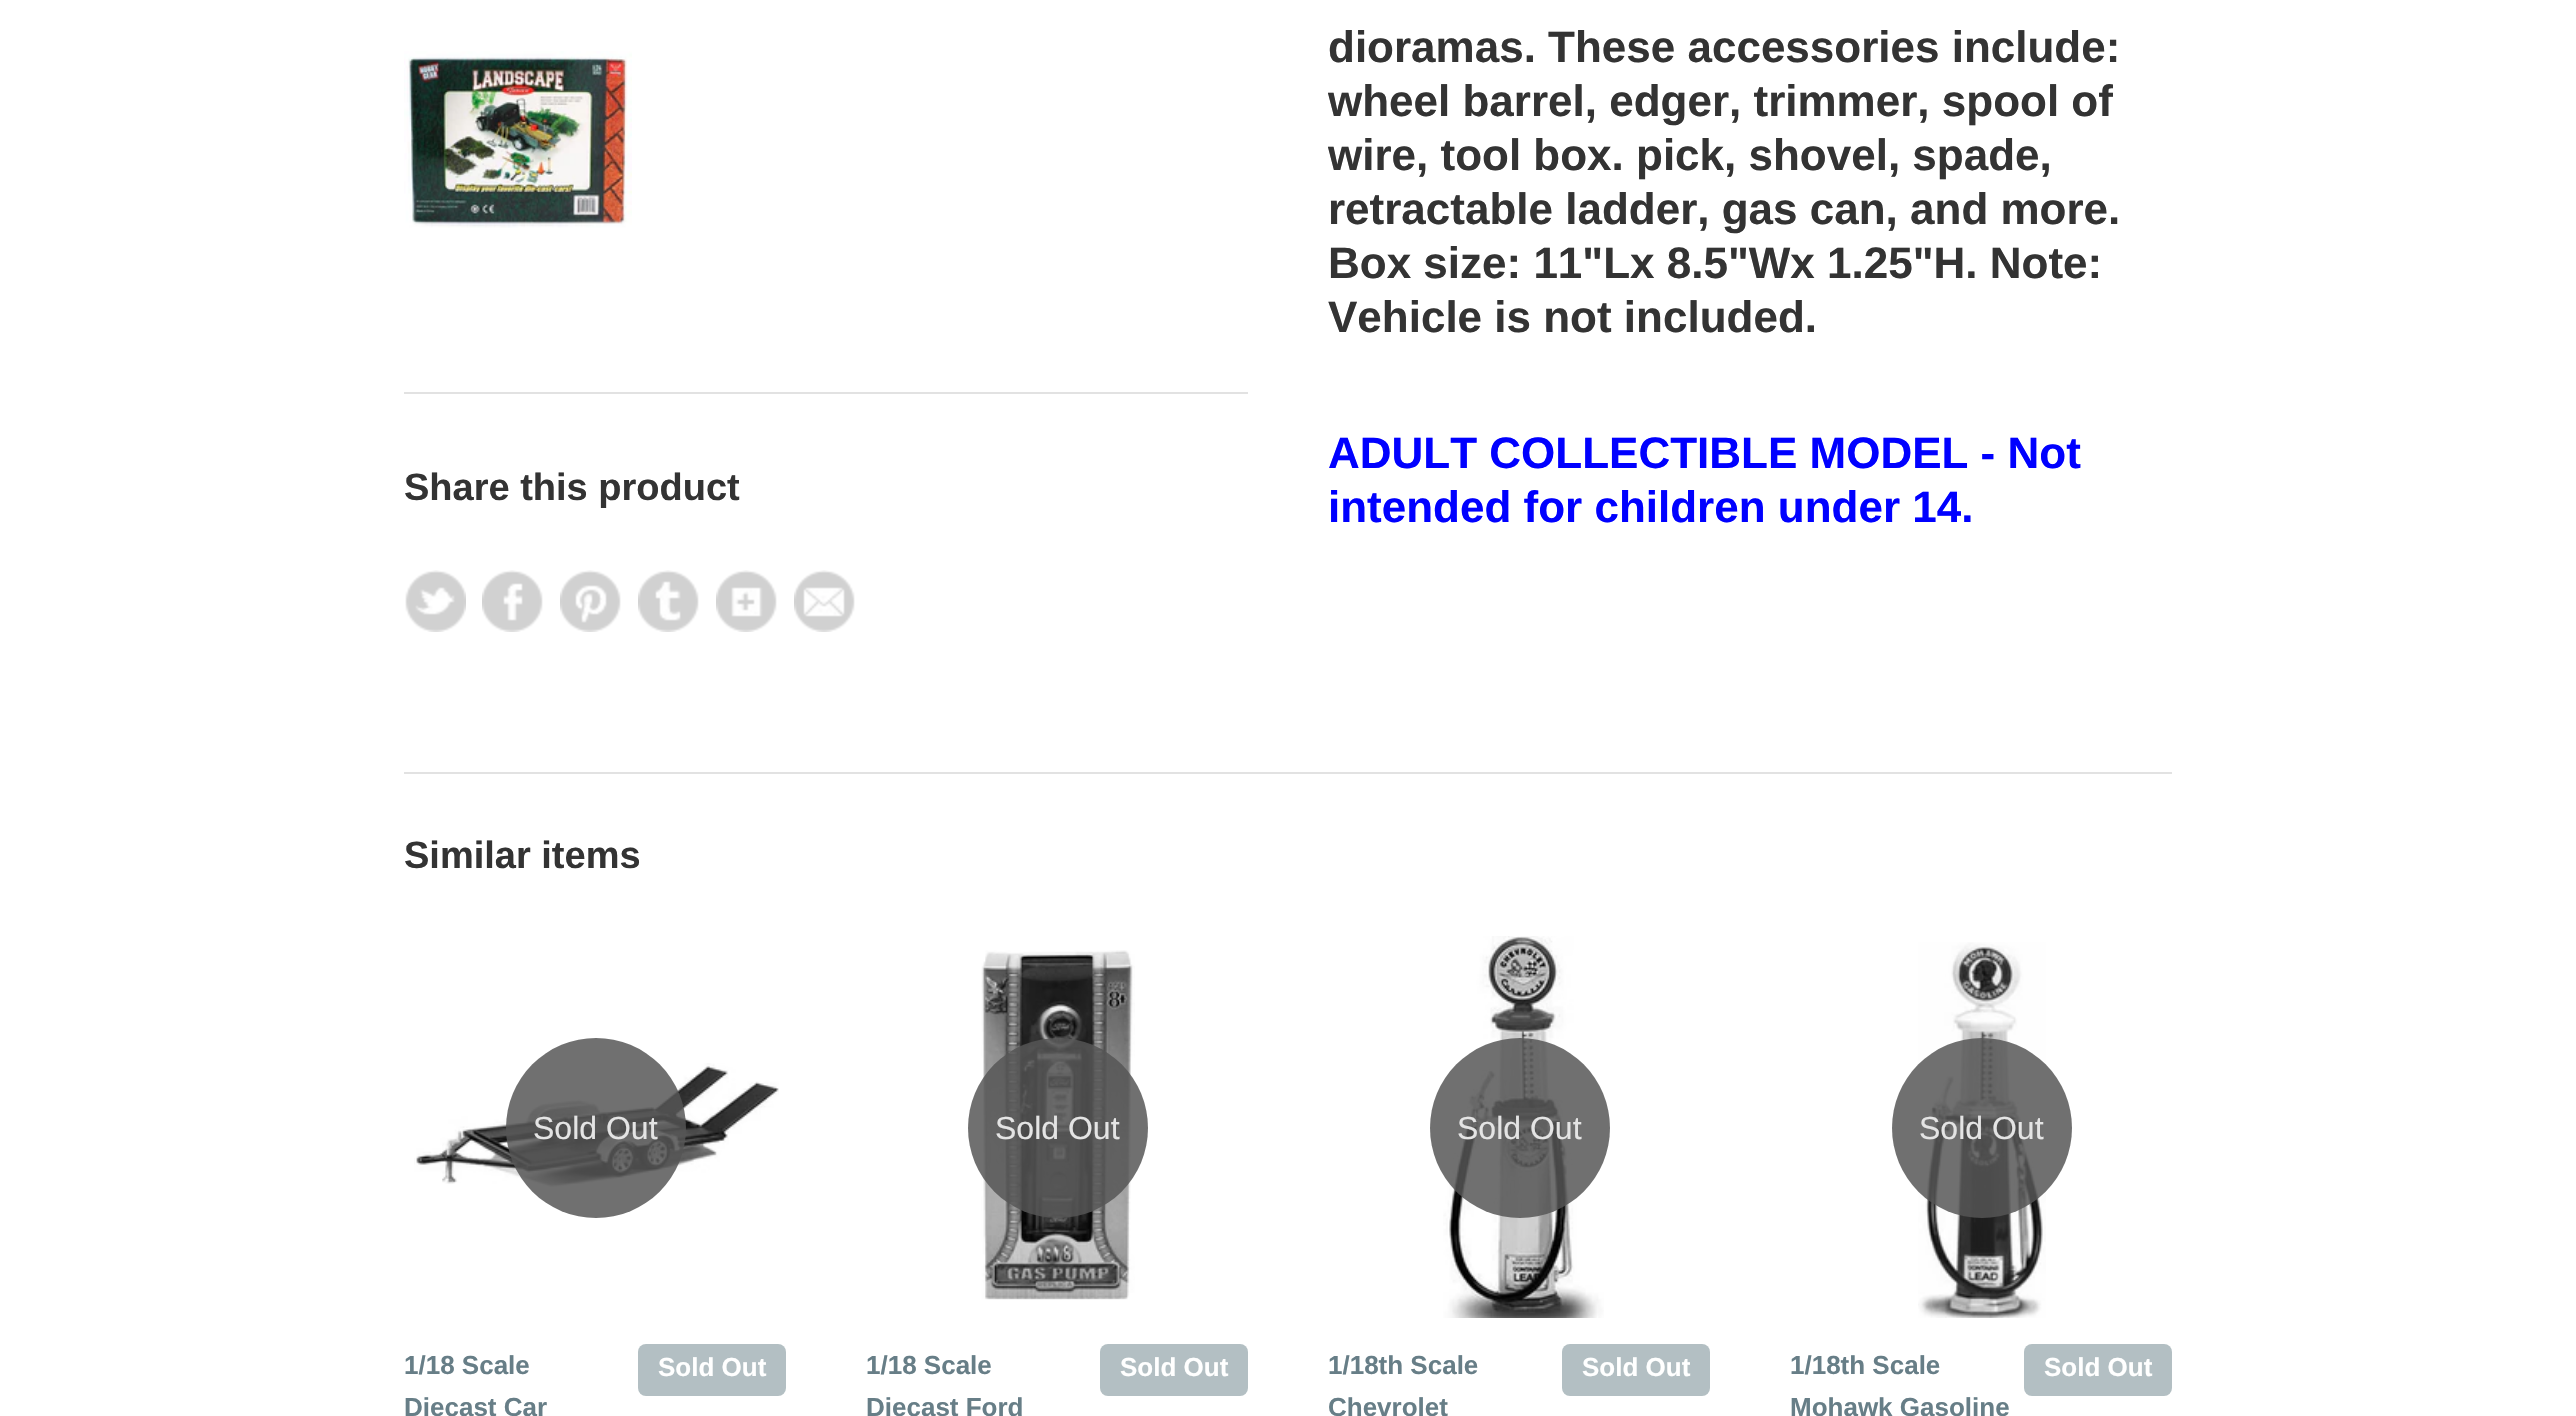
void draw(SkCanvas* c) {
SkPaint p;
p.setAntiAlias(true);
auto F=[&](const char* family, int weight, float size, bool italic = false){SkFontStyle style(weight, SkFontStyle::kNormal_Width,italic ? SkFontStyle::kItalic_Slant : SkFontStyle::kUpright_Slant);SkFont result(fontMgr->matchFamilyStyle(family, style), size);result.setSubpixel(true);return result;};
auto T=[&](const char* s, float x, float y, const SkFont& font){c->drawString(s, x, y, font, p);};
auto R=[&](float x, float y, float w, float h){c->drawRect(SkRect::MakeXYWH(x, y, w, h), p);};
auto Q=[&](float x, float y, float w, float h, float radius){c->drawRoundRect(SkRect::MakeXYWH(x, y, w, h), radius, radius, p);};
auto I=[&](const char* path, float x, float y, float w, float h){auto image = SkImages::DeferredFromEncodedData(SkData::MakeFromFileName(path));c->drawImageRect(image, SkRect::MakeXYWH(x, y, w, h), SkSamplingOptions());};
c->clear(0xffffffff);
I("1.png",404,51,228,177);
p.setColor(0xffe2e2e2);
R(404,392,844,2);
auto f1 = F("Liberation Sans",700,38);
p.setColor(0xff333333);
T("Share this product",404,500,f1);
I("2.png",405,570,61,62);
I("3.png",482,570,61,62);
I("4.png",560,570,61,62);
I("5.png",638,570,61,62);
I("6.png",716,570,61,62);
I("7.png",794,570,61,62);
auto f2 = F("Liberation Sans",700,44);
T("dioramas. These accessories include:",1328,62,f2);
T("wheel barrel, edger, trimmer, spool of",1328,116,f2);
T("wire, tool box. pick, shovel, spade,",1328,170,f2);
T("retractable ladder, gas can, and more.",1328,224,f2);
T("Box size: 11\"Lx 8.5\"Wx 1.25\"H. Note:",1328,278,f2);
T("Vehicle is not included.",1328,332,f2);
p.setColor(0xff0000ff);
T("ADULT COLLECTIBLE MODEL - Not",1328,468,f2);
T("intended for children under 14.",1328,522,f2);
p.setColor(0xffe2e2e2);
R(404,772,1768,2);
p.setColor(0xff333333);
T("Similar items",404,868,f1);
I("8.png",414,1063,365,124);
p.setColor(0xd6555555);
c->drawCircle(596,1128,90,p);
auto f3 = F("Liberation Sans",400,32);
p.setColor(0xffe4e4e4);
T("Sold Out",533,1139,f3);
auto f4 = F("Liberation Sans",700,26);
p.setColor(0xff677e87);
T("1/18 Scale",404,1374,f4);
T("Diecast Car",404,1416,f4);
p.setColor(0xffb3bfc3);
Q(638,1344,148,52,8);
p.setColor(0xffffffff);
T("Sold Out",658,1376,f4);
I("9.png",981,950,154,350);
p.setColor(0xd6555555);
c->drawCircle(1058,1128,90,p);
p.setColor(0xffe4e4e4);
T("Sold Out",995,1139,f3);
p.setColor(0xff677e87);
T("1/18 Scale",866,1374,f4);
T("Diecast Ford",866,1416,f4);
p.setColor(0xffb3bfc3);
Q(1100,1344,148,52,8);
p.setColor(0xffffffff);
T("Sold Out",1120,1376,f4);
I("10.png",1443,936,161,382);
p.setColor(0xd6555555);
c->drawCircle(1520,1128,90,p);
p.setColor(0xffe4e4e4);
T("Sold Out",1457,1139,f3);
p.setColor(0xff677e87);
T("1/18th Scale",1328,1374,f4);
T("Chevrolet",1328,1416,f4);
p.setColor(0xffb3bfc3);
Q(1562,1344,148,52,8);
p.setColor(0xffffffff);
T("Sold Out",1582,1376,f4);
I("11.png",1918,942,128,376);
p.setColor(0xd6555555);
c->drawCircle(1982,1128,90,p);
p.setColor(0xffe4e4e4);
T("Sold Out",1919,1139,f3);
p.setColor(0xff677e87);
T("1/18th Scale",1790,1374,f4);
T("Mohawk Gasoline",1790,1416,f4);
p.setColor(0xffb3bfc3);
Q(2024,1344,148,52,8);
p.setColor(0xffffffff);
T("Sold Out",2044,1376,f4);
}
